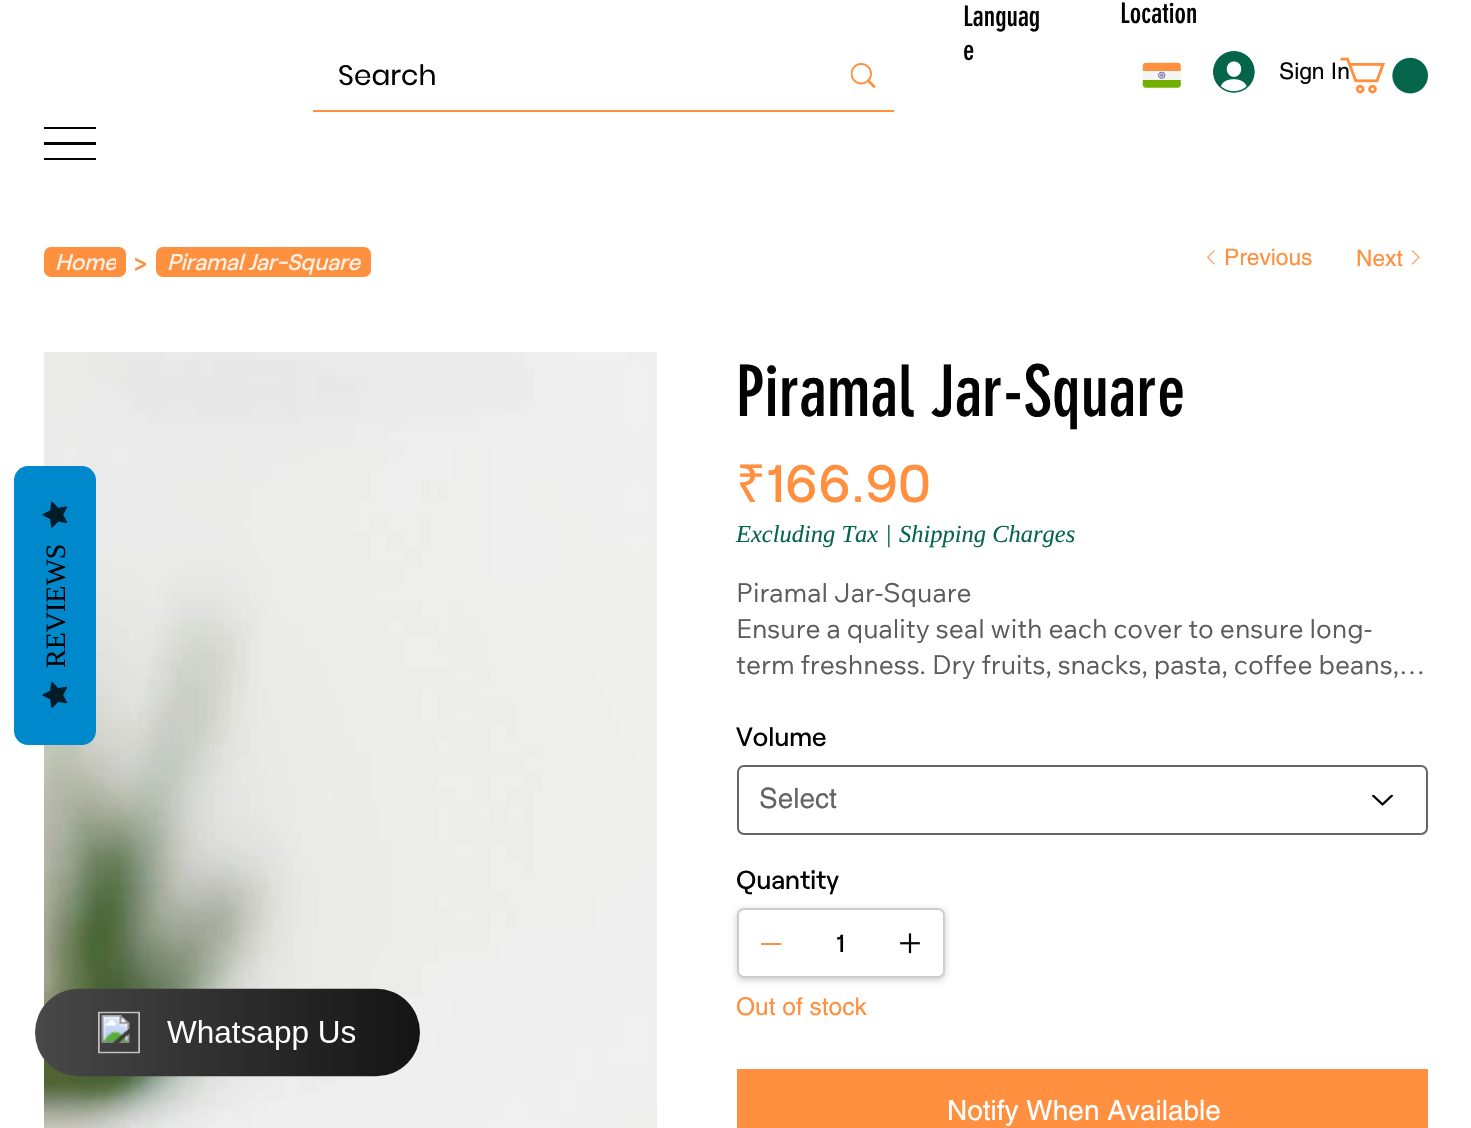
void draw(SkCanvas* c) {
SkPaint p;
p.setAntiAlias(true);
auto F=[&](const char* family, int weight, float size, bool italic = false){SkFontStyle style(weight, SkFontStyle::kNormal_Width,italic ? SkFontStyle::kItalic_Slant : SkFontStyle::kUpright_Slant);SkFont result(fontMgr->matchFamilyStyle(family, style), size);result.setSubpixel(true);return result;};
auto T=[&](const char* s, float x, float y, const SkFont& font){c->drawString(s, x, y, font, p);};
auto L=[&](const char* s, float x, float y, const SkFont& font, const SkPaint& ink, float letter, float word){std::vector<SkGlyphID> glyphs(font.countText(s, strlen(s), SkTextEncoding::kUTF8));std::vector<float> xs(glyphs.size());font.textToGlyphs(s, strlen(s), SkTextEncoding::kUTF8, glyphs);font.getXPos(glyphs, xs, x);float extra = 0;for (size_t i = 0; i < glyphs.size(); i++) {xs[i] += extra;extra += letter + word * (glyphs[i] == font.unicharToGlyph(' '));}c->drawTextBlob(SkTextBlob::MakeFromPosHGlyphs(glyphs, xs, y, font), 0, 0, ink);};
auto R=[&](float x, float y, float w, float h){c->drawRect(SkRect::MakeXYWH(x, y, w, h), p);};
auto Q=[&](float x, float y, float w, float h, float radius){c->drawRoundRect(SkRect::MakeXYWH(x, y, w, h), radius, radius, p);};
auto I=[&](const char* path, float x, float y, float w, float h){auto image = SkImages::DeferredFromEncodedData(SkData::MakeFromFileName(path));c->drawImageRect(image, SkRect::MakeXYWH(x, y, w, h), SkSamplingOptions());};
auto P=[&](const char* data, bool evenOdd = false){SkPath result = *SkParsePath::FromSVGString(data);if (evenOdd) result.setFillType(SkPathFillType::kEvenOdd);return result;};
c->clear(0xffffffff);
auto f1 = F("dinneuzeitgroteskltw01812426",400,28);
p.setColor(0xff030303);
T("Languag",963,26,f1);
T("e",963,60,f1);
T("Location",1120,23,f1);
p.setColor(0xffff9040);
R(313,110,581,2);
auto f2 = F("Poppins",400,28);
p.setColor(0xff030303);
T("Search",338,85,f2);
I("1.png",851,63,25,26);
I("2.png",1142,62,39,26);
I("3.png",1213,51,42,42);
auto f3 = F("helvetica",400,22.75);
T("Sign In",1279,79,f3);
I("4.png",1340,57,88,37);
R(44,127,52,2);
R(44,142,52,3);
R(44,158,52,2);
p.setColor(0xffff9040);
Q(44,247,82,30,7);
c->save();
c->clipRect(SkRect::MakeXYWH(54,247,62,28));
auto f4 = F("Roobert",500,22.75,true);
p.setColor(0xfff7f1e5);
T("Home",55,270,f4);
c->restore();
auto f5 = F("Roobert",500,28);
p.setColor(0xffff9040);
L(">",134,273,f5,p,3,0);
Q(156,247,215,30,7);
p.setColor(0xfff7f1e5);
T("Piramal Jar-Square",167,270,f4);
I("5.png",1207,250,8,15);
p.setColor(0xffff9040);
T("Previous",1224,265,f3);
T("Next",1356,266,f3);
I("6.png",1411,250,9,15);
I("7.png",44,352,613,776);
auto f6 = F("dinneuzeitgroteskltw01812426",400,70);
p.setColor(0xff030303);
T("Piramal Jar-Square",736,416,f6);
auto f7 = F("Noto Sans",400,52.5);
p.setColor(0xffff9040);
T("₹",736,502,f7);
auto f8 = F("Roobert",500,52.5);
T("166.90",766,502,f8);
auto f9 = F("Liberation Serif",400,24.5,true);
p.setColor(0xff04654a);
T("Excluding Tax",736,542,f9);
T("|",885,542,f9);
T("Shipping Charges",899,542,f9);
auto f10 = F("Wix Madefor Text",400,26.25);
p.setColor(0xff5c5c5c);
T("Piramal Jar-Square",736,602,f10);
T("Ensure a quality seal with each cover to ensure long-",736,638,f10);
T("term freshness. Dry fruits, snacks, pasta, coffee beans,…",736,674,f10);
auto f11 = F("Roobert",500,26.25);
p.setColor(0xff030303);
T("Volume",736,746,f11);
p.setStroke(true);
p.setStrokeWidth(2);
p.setColor(0xff666666);
c->drawRoundRect(SkRect::MakeXYWH(738,766,689,68),6,6,p);
auto f12 = F("helvetica",400,28);
p.setStroke(false);
p.setColor(0xff646464);
T("Select",759,808,f12);
I("8.png",1372,795,21,11);
p.setColor(0xff030303);
T("Quantity",736,889,f11);
p.setColor(0x33000000);
p.setMaskFilter(SkMaskFilter::MakeBlur(kNormal_SkBlurStyle, 3.5));
c->drawRoundRect(SkRect::MakeXYWH(737,910,208,70),7,7,p);
p.setMaskFilter(nullptr);
p.setColor(0xffffffff);
Q(737,908,208,70,7);
p.setStroke(true);
p.setColor(0x33030303);
c->drawRoundRect(SkRect::MakeXYWH(738,909,206,68),6,6,p);
p.setStroke(false);
p.setColor(0xffff9040);
R(761,943,20,2);
auto f13 = F("Roobert",500,24.5);
p.setColor(0xff030303);
T("1",836,952,f13);
I("9.png",900,933,20,21);
auto f14 = F("helvetica",400,24.5);
p.setColor(0xffff9040);
T("Out of stock",736,1015,f14);
R(737,1069,691,59);
p.setColor(0xffffffff);
T("Notify When Available",947,1120,f12);
p.setColor(0xff0088cc);
c->drawPath(P("M14 731v-251c0-7 6-14 14-14h54c8 0 14 7 14 14v251c0 7-6 14-14 14h-54c-8 0-14-7-14-14z"),p);
I("10.png",42,501,26,27);
auto f15 = F("Liberation Serif",400,28);
p.setColor(0xff030303);
c->save();
c->rotate(-90,65,668);
T("REVIEWS",65,668,f15);
c->restore();
I("11.png",42,682,26,26);
I("12.png",35,988,385,89);
}
